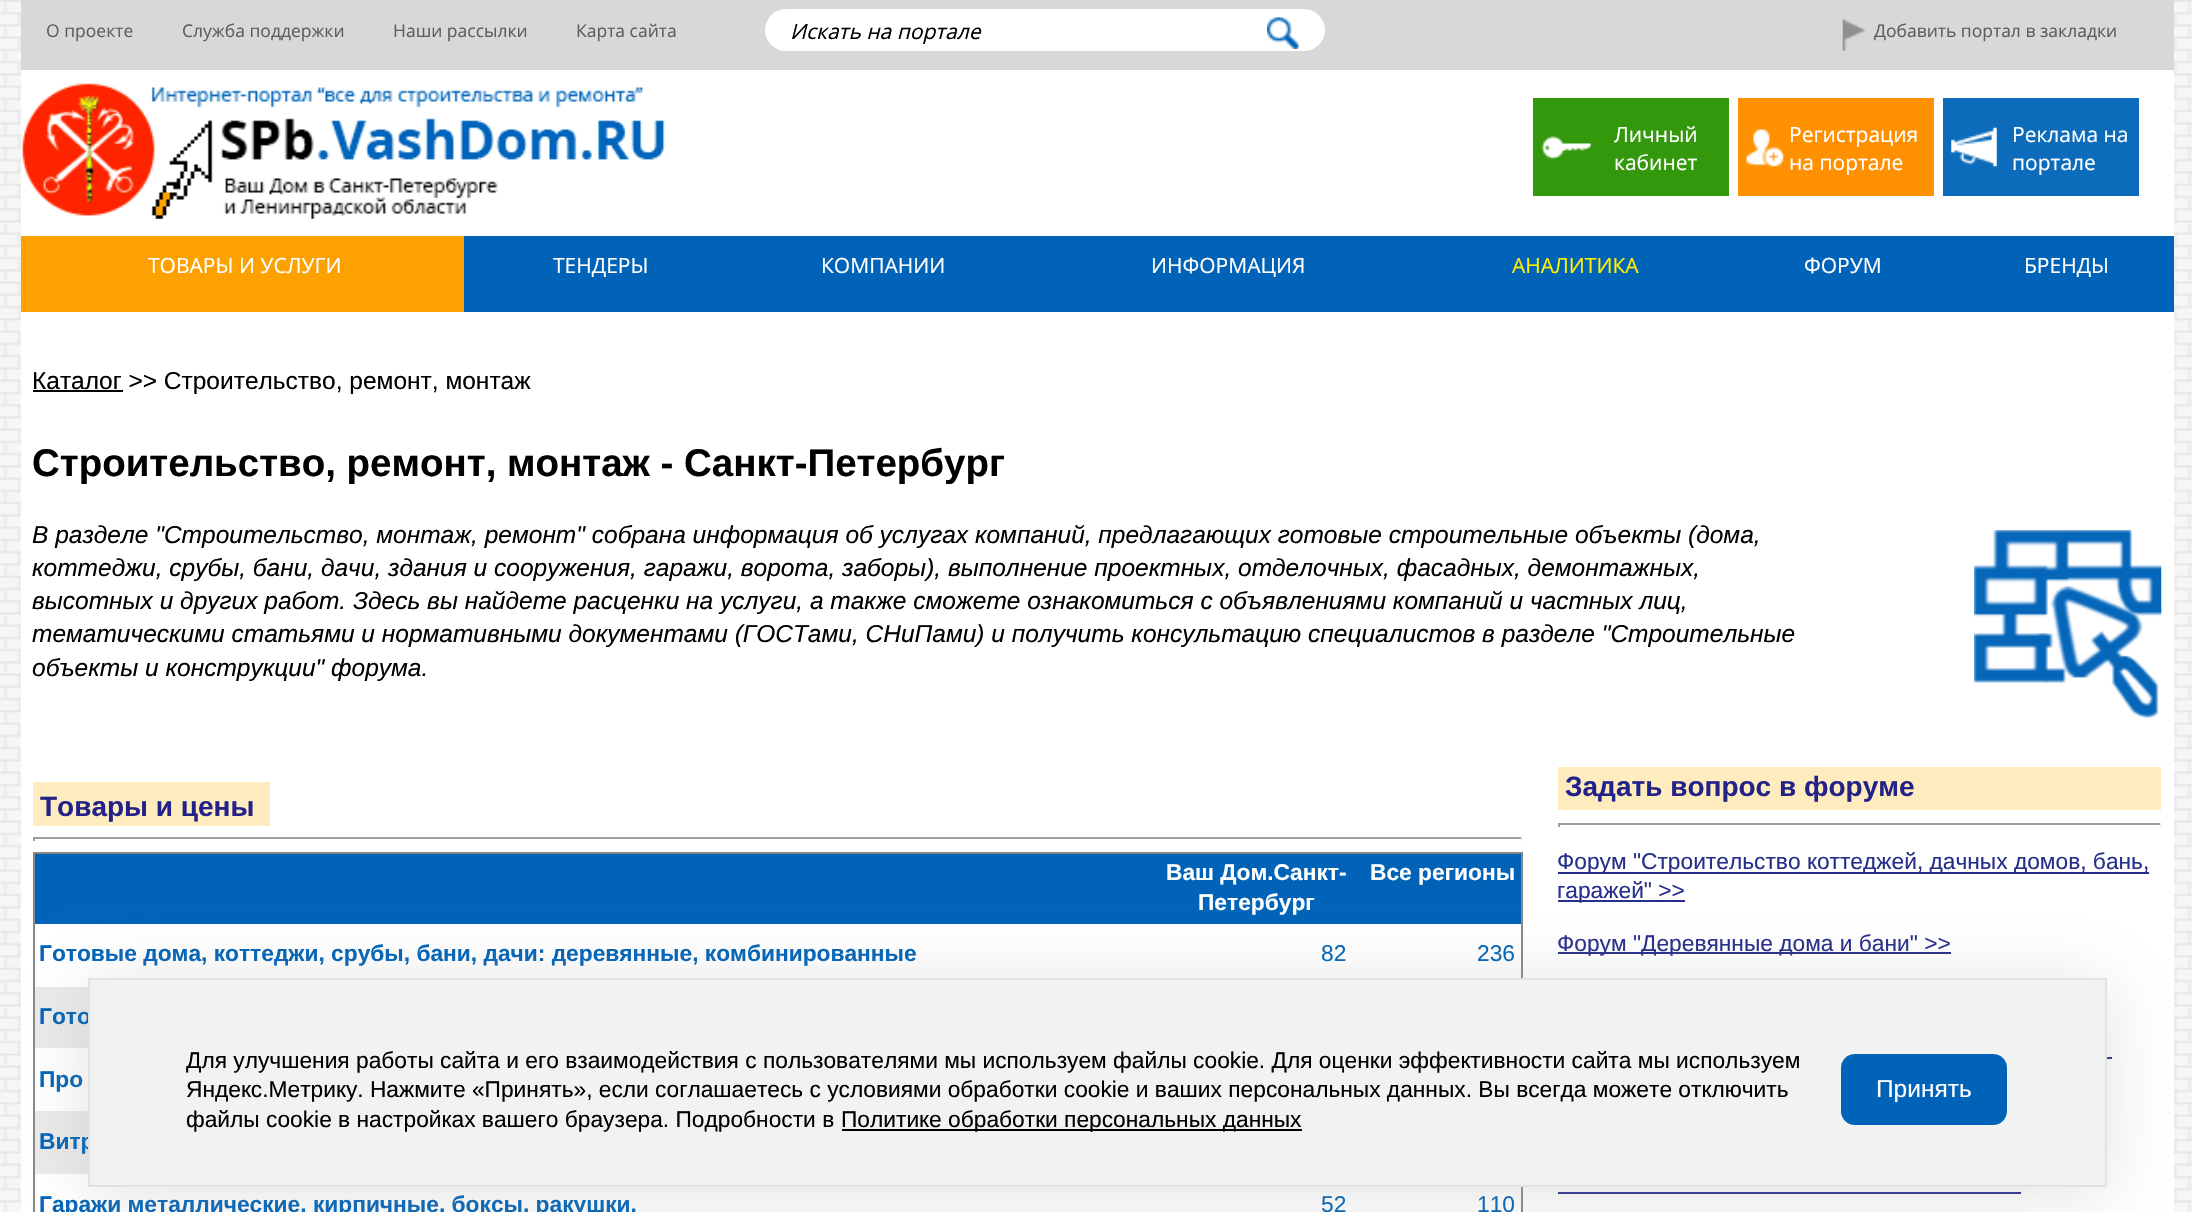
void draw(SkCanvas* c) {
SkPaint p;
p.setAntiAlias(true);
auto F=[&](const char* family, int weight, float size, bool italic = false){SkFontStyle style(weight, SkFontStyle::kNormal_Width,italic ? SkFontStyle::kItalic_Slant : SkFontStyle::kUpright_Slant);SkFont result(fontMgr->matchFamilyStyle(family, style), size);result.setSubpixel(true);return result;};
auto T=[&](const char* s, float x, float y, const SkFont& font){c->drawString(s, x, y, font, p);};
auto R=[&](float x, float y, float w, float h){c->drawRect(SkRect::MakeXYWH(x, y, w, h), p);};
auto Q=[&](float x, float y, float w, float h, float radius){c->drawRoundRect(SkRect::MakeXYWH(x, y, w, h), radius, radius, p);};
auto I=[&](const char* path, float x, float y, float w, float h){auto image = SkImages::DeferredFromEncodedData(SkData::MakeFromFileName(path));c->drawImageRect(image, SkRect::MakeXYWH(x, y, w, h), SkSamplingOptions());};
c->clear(0xffffffff);
I("1.png",0,0,2192,1212);
p.setColor(0xffffffff);
R(21,70,2153,1142);
p.setColor(0xffd8d8d8);
R(21,0,2153,70);
auto f1 = F("Open Sans",400,17.5);
p.setColor(0xff5d5d5d);
T("О проекте",46,37,f1);
T("Служба поддержки",182,37,f1);
T("Наши рассылки",393,37,f1);
T("Карта сайта",576,37,f1);
p.setColor(0xffffffff);
Q(765,9,560,42,21);
auto f2 = F("Open Sans",400,21,true);
p.setColor(0xff000000);
T("Искать на портале",790,39,f2);
I("2.png",1267,17,32,32);
I("3.png",1842,19,24,32);
p.setColor(0xff5d5d5d);
T("Добавить портал в закладки",1874,37,f1);
I("4.png",22,83,644,136);
p.setColor(0xff33980c);
R(1533,98,196,98);
I("5.png",1541,136,50,24);
auto f3 = F("Open Sans",400,21);
p.setColor(0xffffffff);
T("Личный",1614,142,f3);
T("кабинет",1614,170,f3);
p.setColor(0xffff9000);
R(1738,98,196,98);
I("6.png",1746,129,38,38);
p.setColor(0xffffffff);
T("Регистрация",1789,142,f3);
T("на портале",1789,170,f3);
p.setColor(0xff0c6bbb);
R(1943,98,196,98);
I("7.png",1951,127,46,40);
p.setColor(0xffffffff);
T("Реклама на",2012,142,f3);
T("портале",2012,170,f3);
p.setColor(0xff0063b8);
R(464,236,1710,76);
p.setColor(0xfffda100);
R(21,236,443,76);
p.setColor(0xffffffff);
T("ТОВАРЫ И УСЛУГИ",148,273,f3);
T("ТЕНДЕРЫ",553,273,f3);
T("КОМПАНИИ",821,273,f3);
T("ИНФОРМАЦИЯ",1151,273,f3);
p.setColor(0xffffef00);
T("АНАЛИТИКА",1512,273,f3);
p.setColor(0xffffffff);
T("ФОРУМ",1804,273,f3);
T("БРЕНДЫ",2024,273,f3);
p.setColor(0xff000000);
R(33,390,90,2);
auto f4 = F("Liberation Sans",400,24.5);
T("Каталог >> Строительство, ремонт, монтаж",32,389,f4);
auto f5 = F("Liberation Sans",700,38.5);
T("Строительство, ремонт, монтаж - Санкт-Петербург",32,476,f5);
auto f6 = F("Liberation Sans",400,24.5,true);
T("В разделе \"Строительство, монтаж, ремонт\" собрана информация об услугах компаний, предлагающих готовые строительные объекты (дома,",32,543,f6);
T("коттеджи, срубы, бани, дачи, здания и сооружения, гаражи, ворота, заборы), выполнение проектных, отделочных, фасадных, демонтажных,",32,576,f6);
T("высотных и других работ. Здесь вы найдете расценки на услуги, а также сможете ознакомиться с объявлениями компаний и частных лиц,",32,609,f6);
T("тематическими статьями и нормативными документами (ГОСТами, СНиПами) и получить консультацию специалистов в разделе \"Строительные",32,642,f6);
T("объекты и конструкции\" форума.",32,676,f6);
I("8.png",1974,530,188,188);
p.setColor(0xffffecbe);
R(33,782,237,44);
auto f7 = F("Liberation Sans",700,28);
p.setColor(0xff222288);
T("Товары и цены",40,816,f7);
p.setColor(0xff9f9f9f);
R(33,837,1490,2);
p.setColor(0xffeeeeee);
R(1521,837,2,4);
p.setColor(0xff9f9f9f);
R(33,837,2,4);
p.setColor(0xff888888);
R(33,852,1490,360);
p.setColor(0xff0063b8);
R(35,854,1486,70);
auto f8 = F("Liberation Sans",700,22.75);
p.setColor(0xffffffff);
T("Ваш Дом.Санкт-",1166,880,f8);
T("Петербург",1198,910,f8);
T("Все регионы",1370,880,f8);
R(35,924,1486,63);
p.setColor(0xff0063b8);
T("Готовые дома, коттеджи, срубы, бани, дачи: деревянные, комбинированные",39,961,f8);
auto f9 = F("Liberation Sans",400,22.75);
T("82",1321,961,f9);
T("236",1477,961,f9);
p.setColor(0xffeaeaea);
R(35,987,53,61);
p.setColor(0xff0063b8);
T("Гото",39,1024,f8);
p.setColor(0xffffffff);
R(35,1048,53,63);
p.setColor(0xff0063b8);
T("Про",39,1087,f8);
p.setColor(0xffeaeaea);
R(35,1111,53,63);
p.setColor(0xff0063b8);
T("Витр",39,1149,f8);
p.setColor(0xffffffff);
R(35,1174,1486,38);
p.setColor(0xff0063b8);
T("Гаражи металлические, кирпичные, боксы, ракушки.",39,1212,f8);
T("52",1321,1212,f9);
T("110",1477,1212,f9);
p.setColor(0xffffecbe);
R(1558,767,603,43);
p.setColor(0xff222288);
T("Задать вопрос в форуме",1565,796,f7);
p.setColor(0xff9f9f9f);
R(1558,823,603,2);
p.setColor(0xffeeeeee);
R(2160,823,2,4);
p.setColor(0xff9f9f9f);
R(1558,823,2,4);
p.setColor(0xff262f8a);
R(1558,872,591,2);
T("Форум \"Строительство коттеджей, дачных домов, бань,",1557,869,f9);
R(1558,900,127,2);
T("гаражей\" >>",1557,898,f9);
R(1558,952,393,2);
T("Форум \"Деревянные дома и бани\" >>",1557,951,f9);
R(2107,1057,5,2);
R(1558,1192,463,2);
p.setColor(0x4d9b9b9b);
p.setMaskFilter(SkMaskFilter::MakeBlur(kNormal_SkBlurStyle, 35));
c->drawRect(SkRect::MakeXYWH(88,985,2019,209),p);
p.setMaskFilter(nullptr);
p.setColor(0xfff1f2f2);
c->drawRect(SkRect::MakeXYWH(89,979,2017,207),p);
p.setStroke(true);
p.setStrokeWidth(2);
p.setColor(0xffe2e2e2);
c->drawRect(SkRect::MakeXYWH(89,979,2017,207),p);
p.setStroke(false);
p.setColor(0xff000000);
T("Для улучшения работы сайта и его взаимодействия с пользователями мы используем файлы cookie. Для оценки эффективности сайта мы используем",186,1068,f9);
T("Яндекс.Метрику. Нажмите «Принять», если соглашаетесь с условиями обработки cookie и ваших персональных данных. Вы всегда можете отключить",186,1097,f9);
T("файлы cookie в настройках вашего браузера. Подробности в",186,1127,f9);
R(842,1129,460,2);
T("Политике обработки персональных данных",841,1127,f9);
p.setColor(0xff0063b8);
Q(1841,1054,166,71,14);
p.setColor(0xffffffff);
T("Принять",1876,1097,f4);
}
